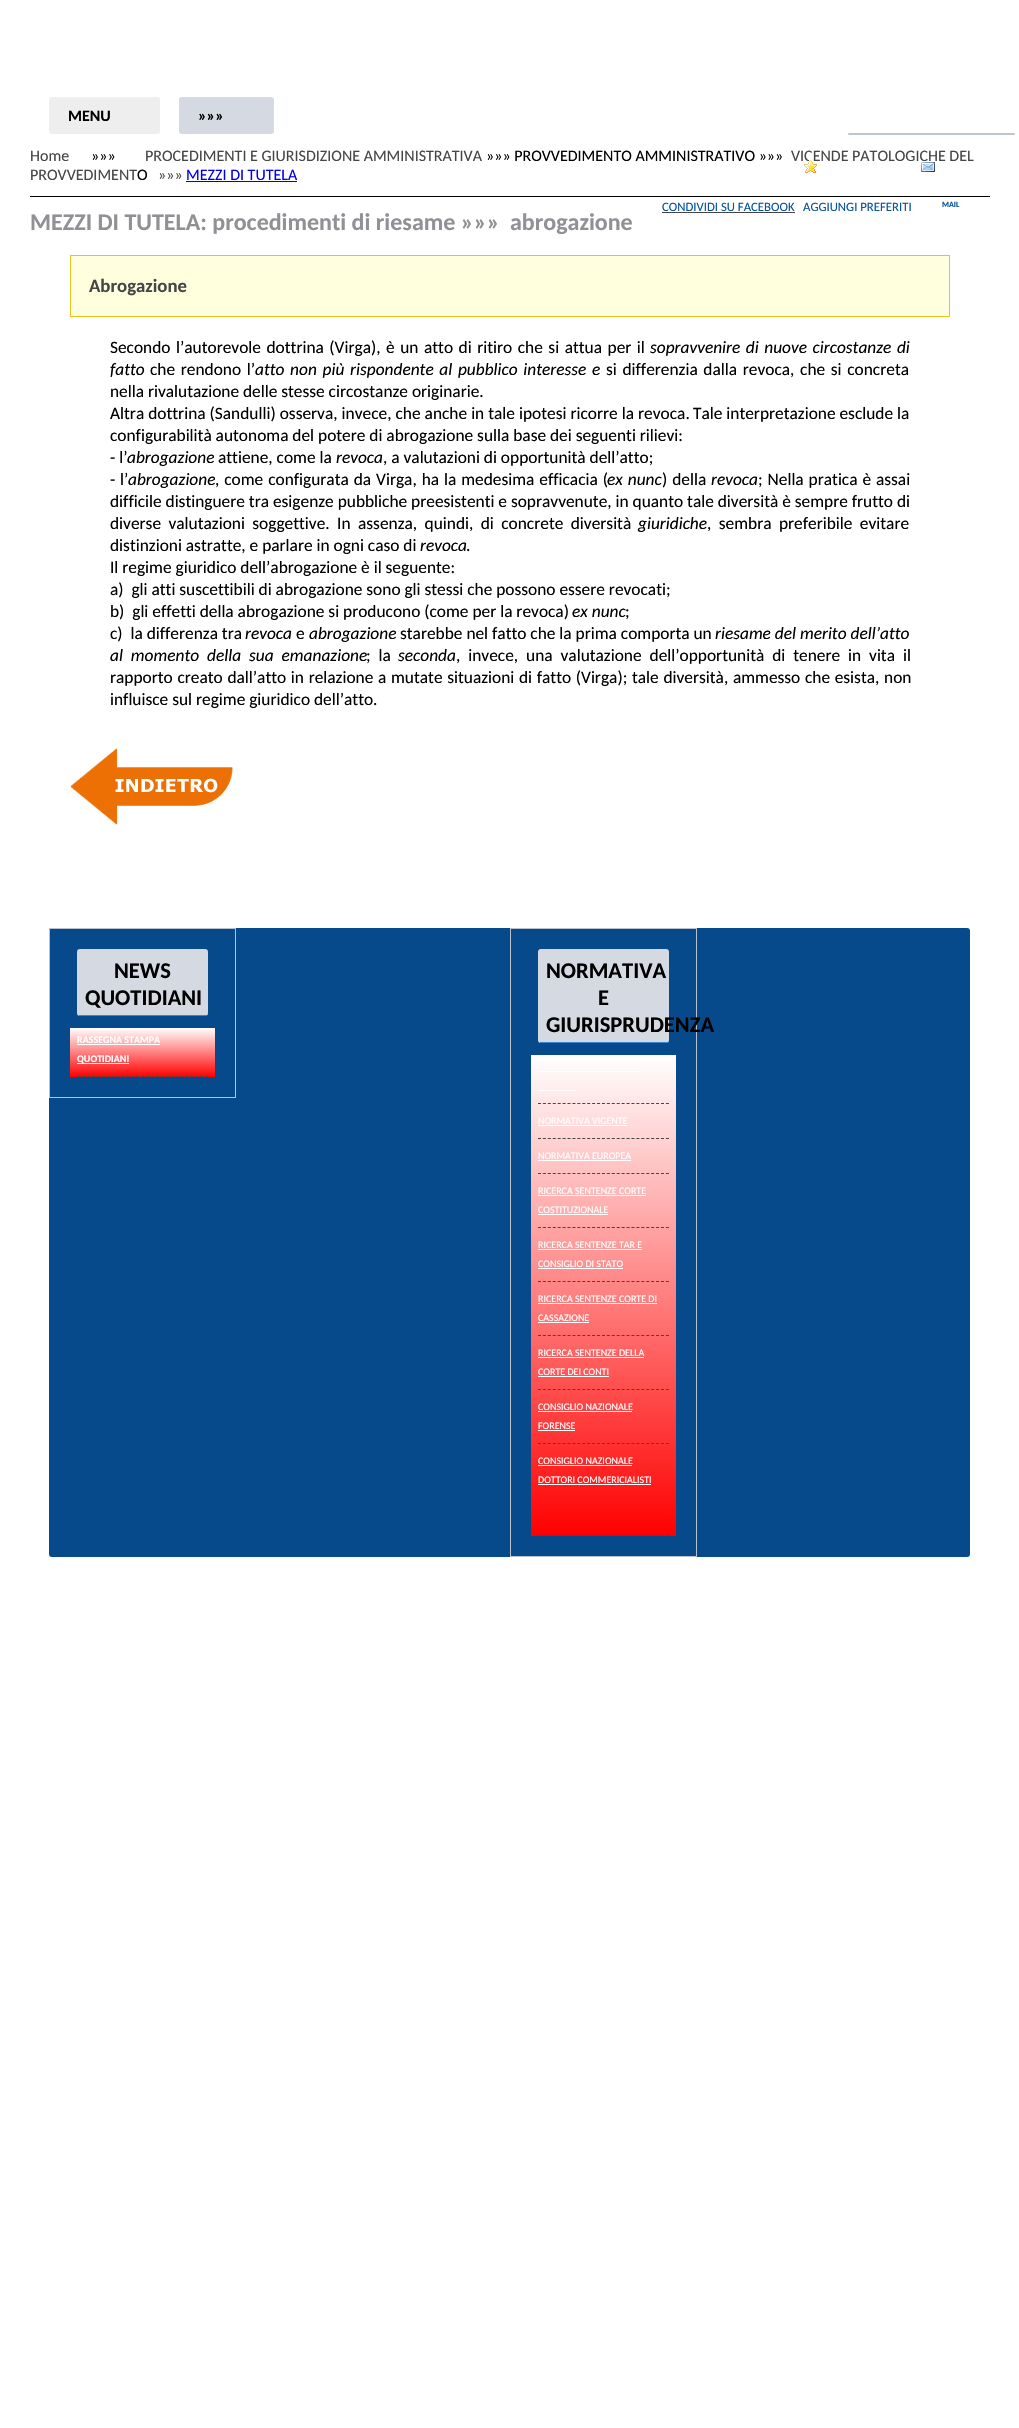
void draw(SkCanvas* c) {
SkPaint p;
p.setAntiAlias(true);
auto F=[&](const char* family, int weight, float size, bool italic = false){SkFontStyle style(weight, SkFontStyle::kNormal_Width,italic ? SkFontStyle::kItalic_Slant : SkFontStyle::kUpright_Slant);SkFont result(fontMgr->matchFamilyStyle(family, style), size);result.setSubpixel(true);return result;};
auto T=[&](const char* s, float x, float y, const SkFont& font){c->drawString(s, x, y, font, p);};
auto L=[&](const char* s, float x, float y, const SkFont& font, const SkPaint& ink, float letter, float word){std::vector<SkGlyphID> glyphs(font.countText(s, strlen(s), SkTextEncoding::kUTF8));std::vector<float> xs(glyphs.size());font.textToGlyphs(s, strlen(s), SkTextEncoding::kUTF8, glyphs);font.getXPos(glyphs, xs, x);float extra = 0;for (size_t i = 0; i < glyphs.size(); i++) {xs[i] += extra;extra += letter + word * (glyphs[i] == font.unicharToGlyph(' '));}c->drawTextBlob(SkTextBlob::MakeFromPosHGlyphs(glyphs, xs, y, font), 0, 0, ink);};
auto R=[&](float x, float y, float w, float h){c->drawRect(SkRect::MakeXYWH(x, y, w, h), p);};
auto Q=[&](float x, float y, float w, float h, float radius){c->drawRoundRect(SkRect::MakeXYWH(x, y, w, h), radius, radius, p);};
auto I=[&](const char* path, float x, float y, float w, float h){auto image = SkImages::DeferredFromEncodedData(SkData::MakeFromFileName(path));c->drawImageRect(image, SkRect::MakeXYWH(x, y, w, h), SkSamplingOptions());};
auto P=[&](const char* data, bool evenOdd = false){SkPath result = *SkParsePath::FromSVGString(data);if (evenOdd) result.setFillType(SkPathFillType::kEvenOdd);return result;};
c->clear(0xffffffff);
p.setColor(0xffeeeeee);
Q(49,97,111,37,3);
auto f1 = F("Carlito",700,16);
p.setColor(0xff000000);
T("MENU",68,121,f1);
p.setColor(0xffd5d9e2);
Q(179,97,95,37,3);
p.setColor(0xff000000);
T("»»»",198,121,f1);
p.setColor(0xffbec5cd);
Q(848,133,167,2,1);
auto f2 = F("Carlito",400,12.75);
p.setColor(0xff06549e);
T("CONDIVIDI SU FACEBOOK",662,211,f2);
p.setColor(0xff464646);
R(662,212,133,1);
auto f3 = F("Carlito",400,16);
T("VICENDE PATOLOGICHE DEL",791,161,f3);
I("1.png",804,159,13,14);
p.setColor(0xff06549e);
T("AGGIUNGI PREFERITI",803,211,f2);
I("2.png",921,161,14,11);
auto f4 = F("Carlito",700,8);
T("MAIL",942,207,f4);
p.setColor(0xff464646);
T("Home",30,161,f3);
p.setColor(0xff000000);
T("»»»",91,161,f3);
p.setColor(0xff464646);
T("PROCEDIMENTI E GIURISDIZIONE AMMINISTRATIVA",145,161,f3);
p.setColor(0xff000000);
T("»»» PROVVEDIMENTO AMMINISTRATIVO »»»",486,161,f3);
p.setColor(0xff464646);
T("PROVVEDIMENT",30,180,f3);
p.setColor(0xff000000);
T("O",137,180,f3);
p.setColor(0xff464646);
T("»»»",158,180,f3);
p.setColor(0xff0000ee);
T("MEZZI DI TUTELA",186,180,f3);
R(186,181,111,1);
p.setColor(0xff000000);
R(30,196,960,1);
auto f5 = F("Carlito",700,24);
p.setColor(0xff909195);
T("MEZZI DI TUTELA: procedimenti di riesame »»»",30,230,f5);
T("abrogazione",510,230,f5);
p.setColor(0xffffffdd);
c->drawRect(SkRect::MakeXYWH(70.5,255.5,879,61),p);
p.setStroke(true);
p.setStrokeWidth(1);
p.setColor(0xfff0c020);
c->drawRect(SkRect::MakeXYWH(70.5,255.5,879,61),p);
auto f6 = F("Carlito",700,18.75);
p.setStroke(false);
p.setColor(0xff464646);
T("Abrogazione",89,292,f6);
auto f7 = F("Carlito",400,17.35);
p.setColor(0xff000000);
L("Secondo l’autorevole dottrina (Virga), è un atto di ritiro che si attua per il",110,353,f7,p,0,1.6);
auto f8 = F("Carlito",400,17.35,true);
L("sopravvenire di nuove circostanze di",650,353,f8,p,0,1.6);
T("fatto",110,375,f8);
L("che rendono l’",150,375,f7,p,0,1.75);
L("atto non più rispondente al pubblico interesse e",255,375,f8,p,0,1.75);
L("si differenzia dalla revoca, che si concreta",606,375,f7,p,0,1.75);
T("nella rivalutazione delle stesse circostanze originarie.",110,397,f7);
L("Altra dottrina (Sandulli) osserva, invece, che anche in tale ipotesi ricorre la revoca.",110,419,f7,p,0,.1);
T("Tale interpretazione esclude la",693,419,f7);
T("configurabilità autonoma del potere di abrogazione sulla base dei seguenti rilievi:",110,441,f7);
T("- l’",110,463,f7);
T("abrogazione",127,463,f8);
T("attiene, come la",218,463,f7);
T("revoca",336,463,f8);
T(", a valutazioni di opportunità dell’atto;",383,463,f7);
T("-",110,485,f7);
T("l’",120,485,f7);
T("abrogazione",128,485,f8);
L(", come configurata da Virga, ha la medesima efficacia (",215,485,f7,p,0,1);
L("ex nunc",607,485,f8,p,0,1);
L(") della",662,485,f7,p,0,1);
T("revoca",711,485,f8);
L("; Nella pratica è assai",758,485,f7,p,0,1);
T("difficile distinguere tra esigenze pubbliche preesistenti e sopravvenute, in quanto tale diversità è sempre frutto di",110,507,f7);
L("diverse valutazioni soggettive. In assenza, quindi, di concrete diversità",110,529,f7,p,0,3.5);
T("giuridiche",638,529,f8);
L(", sembra preferibile evitare",707,529,f7,p,0,3.5);
T("distinzioni astratte, e parlare in ogni caso di",110,551,f7);
T("revoca",420,551,f8);
T(".",466,551,f7);
T("Il regime giuridico dell’abrogazione è il seguente:",110,573,f7);
T("a)  gli atti suscettibili di abrogazione sono gli stessi che possono essere revocati;",110,595,f7);
T("b)  gli effetti della abrogazione si producono (come per la revoca)",110,617,f7);
T("ex nunc",572,617,f8);
T(";",625,617,f7);
T("c)  la differenza tra",110,639,f7);
T("revoca",245,639,f8);
T("e",296,639,f7);
T("abrogazione",309,639,f8);
T("starebbe nel fatto che la prima comporta un",400,639,f7);
T("riesame del merito dell’atto",715,639,f8);
L("al momento della sua emanazione",110,661,f8,p,0,4);
L("; la",366,661,f7,p,0,4);
T("seconda",398,661,f8);
L(", invece, una valutazione dell’opportunità di tenere in vita il",456,661,f7,p,0,4);
L("rapporto creato dall’atto in relazione a mutate situazioni di fatto (Virga); tale diversità, ammesso che esista, non",110,683,f7,p,0,.75);
T("influisce sul regime giuridico dell’atto.",110,705,f7);
I("3.png",70,748,163,77);
p.setColor(0xff064a8b);
Q(49,928,921,629,3);
p.setStroke(true);
p.setColor(0xffb9c0d0);
c->drawRect(SkRect::MakeXYWH(49.5,928.5,186,169),p);
p.setStroke(false);
p.setColor(0xffd5d9e2);
Q(77,949,131,67,3);
p.setColor(0xff3784d2);
R(79,1015,128,1);
auto f9 = F("Carlito",700,22.5);
p.setColor(0xff000000);
T("NEWS",114,978,f9);
T("QUOTIDIANI",85,1005,f9);
{
const SkColor colors[] = {0xffffffff,0xffff0000};
const float stops[] = {0,1};
const SkPoint ends[] = {{143,1028}, {143,1077}};
p.setShader(SkGradientShader::MakeLinear(ends, colors, stops, 2, SkTileMode::kClamp));
p.setAlpha(255);
}
R(70,1028,145,49);
p.setStroke(true);
p.setShader(nullptr);
p.setColor(0xff464646);
p.setPathEffect(SkDashPathEffect::Make({{3,1.92f}}, 0));
c->drawPath(P("M77 1076.5h131"),p);
p.setPathEffect(nullptr);
auto f10 = F("Carlito",700,10);
p.setStroke(false);
p.setColor(0xffffffff);
T("RASSEGNA STAMPA",77,1043,f10);
R(77,1044,83,1);
R(77,1063,52,1);
T("QUOTIDIANI",77,1062,f10);
p.setStroke(true);
p.setColor(0xffb9c0d0);
c->drawRect(SkRect::MakeXYWH(510.5,928.5,186,628),p);
p.setStroke(false);
p.setColor(0xffd5d9e2);
Q(538,949,131,94,3);
p.setColor(0xff3784d2);
R(540,1042,128,1);
p.setColor(0xff000000);
T("NORMATIVA",546,978,f9);
T("E",598,1005,f9);
T("GIURISPRUDENZA",546,1032,f9);
{
const SkColor colors[] = {0xffffffff,0xffff0000};
const float stops[] = {0,1};
const SkPoint ends[] = {{604,1055}, {604,1536}};
p.setShader(SkGradientShader::MakeLinear(ends, colors, stops, 2, SkTileMode::kClamp));
p.setAlpha(255);
}
R(531,1055,145,481);
p.setStroke(true);
p.setShader(nullptr);
p.setColor(0xff464646);
p.setPathEffect(SkDashPathEffect::Make({{3,1.92f}}, 0));
c->drawPath(P("M538 1103.5h131"),p);
p.setPathEffect(nullptr);
p.setStroke(false);
p.setColor(0xffffffff);
R(538,1071,102,1);
R(538,1090,38,1);
p.setStroke(true);
p.setColor(0xff464646);
p.setPathEffect(SkDashPathEffect::Make({{3,1.92f}}, 0));
c->drawPath(P("M538 1138.5h131"),p);
p.setPathEffect(nullptr);
auto f11 = F("Carlito",400,10);
p.setStroke(false);
p.setColor(0xffffffff);
T("NORMATIVA VIGENTE",538,1124,f11);
R(538,1125,89,1);
p.setStroke(true);
p.setColor(0xff464646);
p.setPathEffect(SkDashPathEffect::Make({{3,1.92f}}, 0));
c->drawPath(P("M538 1173.5h131"),p);
p.setPathEffect(nullptr);
p.setStroke(false);
p.setColor(0xffffffff);
T("NORMATIVA EUROPEA",538,1159,f11);
R(538,1160,93,1);
p.setStroke(true);
p.setColor(0xff464646);
p.setPathEffect(SkDashPathEffect::Make({{3,1.92f}}, 0));
c->drawPath(P("M538 1227.5h131"),p);
p.setPathEffect(nullptr);
p.setStroke(false);
p.setColor(0xffffffff);
T("RICERCA SENTENZE CORTE",538,1194,f11);
R(538,1195,108,1);
T("COSTITUZIONALE",538,1213,f11);
R(538,1214,70,1);
p.setStroke(true);
p.setColor(0xff464646);
p.setPathEffect(SkDashPathEffect::Make({{3,1.92f}}, 0));
c->drawPath(P("M538 1281.5h131"),p);
p.setPathEffect(nullptr);
p.setStroke(false);
p.setColor(0xffffffff);
T("RICERCA SENTENZE TAR E",538,1248,f11);
R(538,1249,104,1);
T("CONSIGLIO DI STATO",538,1267,f11);
R(538,1268,85,1);
p.setStroke(true);
p.setColor(0xff464646);
p.setPathEffect(SkDashPathEffect::Make({{3,1.92f}}, 0));
c->drawPath(P("M538 1335.5h131"),p);
p.setPathEffect(nullptr);
p.setStroke(false);
p.setColor(0xffffffff);
T("RICERCA SENTENZE CORTE DI",538,1302,f11);
R(538,1303,119,1);
T("CASSAZIONE",538,1321,f11);
R(538,1322,51,1);
p.setStroke(true);
p.setColor(0xff464646);
p.setPathEffect(SkDashPathEffect::Make({{3,1.92f}}, 0));
c->drawPath(P("M538 1389.5h131"),p);
p.setPathEffect(nullptr);
p.setStroke(false);
p.setColor(0xffffffff);
T("RICERCA SENTENZE DELLA",538,1356,f11);
R(538,1357,106,1);
T("CORTE DEI CONTI",538,1375,f11);
R(538,1376,71,1);
p.setStroke(true);
p.setColor(0xff464646);
p.setPathEffect(SkDashPathEffect::Make({{3,1.92f}}, 0));
c->drawPath(P("M538 1443.5h131"),p);
p.setPathEffect(nullptr);
p.setStroke(false);
p.setColor(0xffffffff);
T("CONSIGLIO NAZIONALE",538,1410,f11);
R(538,1411,94,1);
T("FORENSE",538,1429,f11);
R(538,1430,37,1);
p.setStroke(true);
p.setColor(0xff464646);
p.setPathEffect(SkDashPathEffect::Make({{3,1.92f}}, 0));
c->drawPath(P("M538 1535.5h131"),p);
p.setPathEffect(nullptr);
p.setStroke(false);
p.setColor(0xffffffff);
T("CONSIGLIO NAZIONALE",538,1464,f11);
R(538,1465,94,1);
T("DOTTORI COMMERICIALISTI",538,1483,f11);
R(538,1484,113,1);
}
